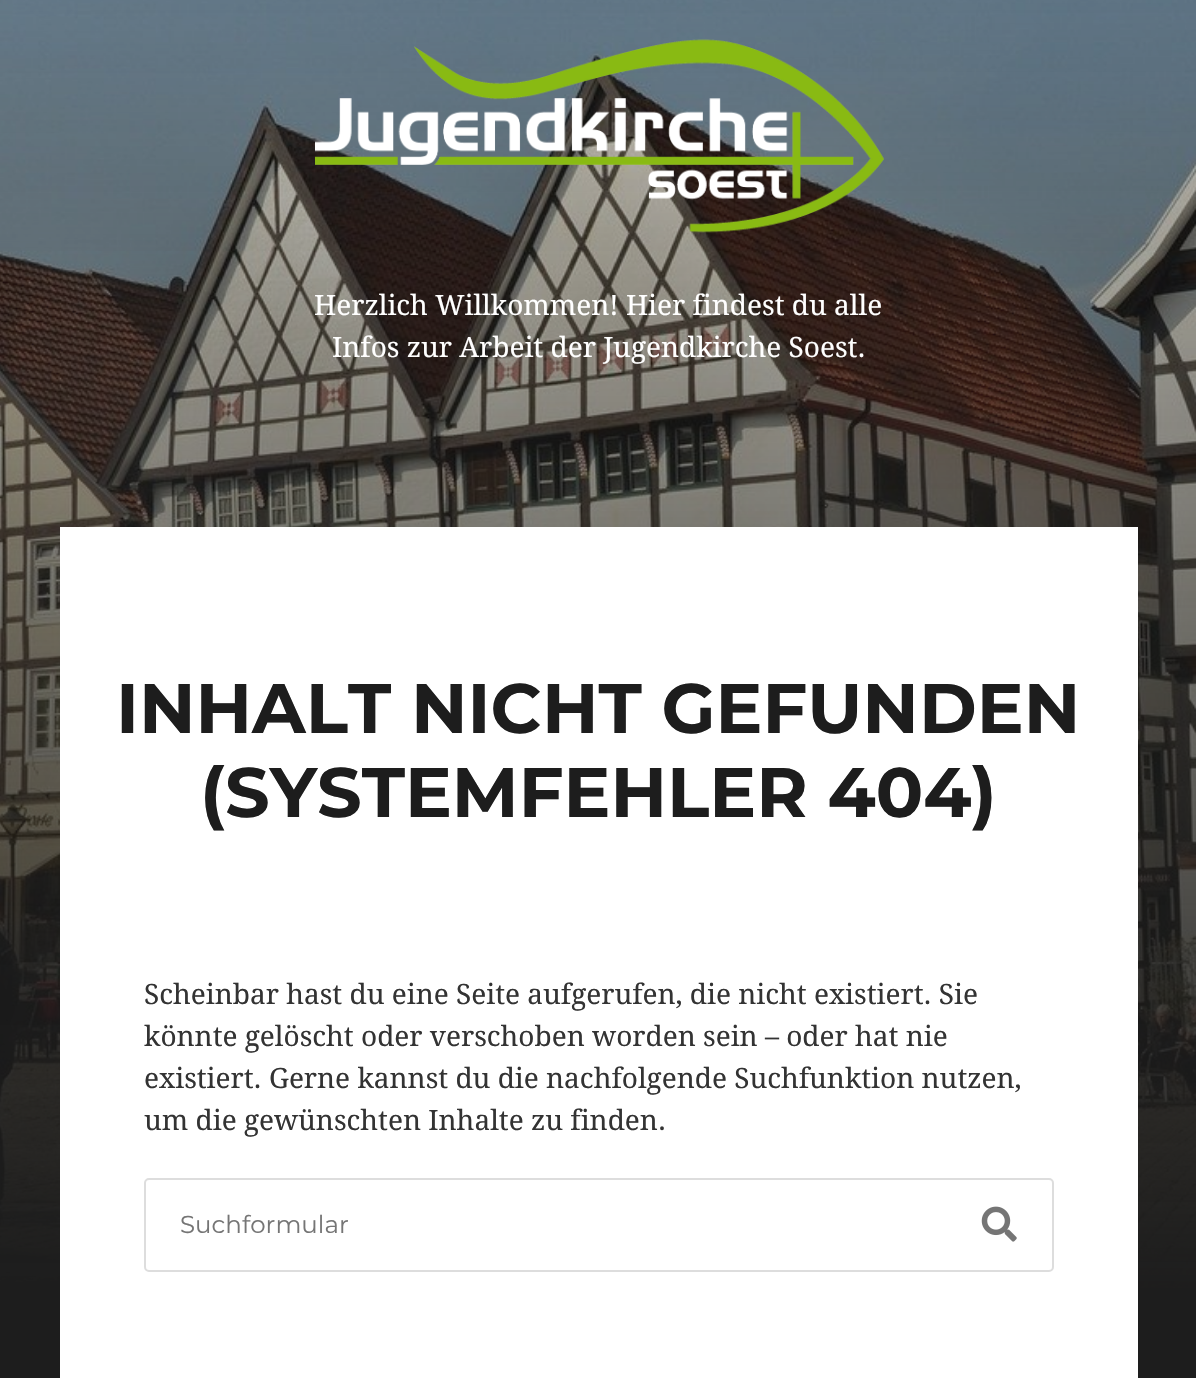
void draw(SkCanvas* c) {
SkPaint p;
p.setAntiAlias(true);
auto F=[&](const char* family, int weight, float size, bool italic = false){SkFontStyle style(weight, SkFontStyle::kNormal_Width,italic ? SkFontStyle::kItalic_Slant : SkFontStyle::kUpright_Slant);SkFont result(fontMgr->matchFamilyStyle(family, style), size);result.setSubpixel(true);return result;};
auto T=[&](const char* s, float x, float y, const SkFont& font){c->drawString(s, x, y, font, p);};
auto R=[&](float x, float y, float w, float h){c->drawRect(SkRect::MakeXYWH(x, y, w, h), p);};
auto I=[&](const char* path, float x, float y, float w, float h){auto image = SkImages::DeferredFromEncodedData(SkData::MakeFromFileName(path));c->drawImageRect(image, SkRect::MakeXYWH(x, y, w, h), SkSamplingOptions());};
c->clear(0xff1d1d1d);
I("1.png",0,0,1196,1291);
I("2.png",315,39,569,194);
auto f1 = F("Droid Serif",400,28);
p.setColor(0xffffffff);
T("Herzlich Willkommen! Hier findest du alle",314,315,f1);
T("Infos zur Arbeit der Jugendkirche Soest.",332,357,f1);
R(60,527,1078,851);
auto f2 = F("Montserrat",100,70);
p.setColor(0xff1d1d1d);
T("INHALT NICHT GEFUNDEN",116,733,f2);
T("(SYSTEMFEHLER 404)",200,817,f2);
p.setColor(0xff333333);
T("Scheinbar hast du eine Seite aufgerufen, die nicht existiert. Sie",144,1004,f1);
T("könnte gelöscht oder verschoben worden sein – oder hat nie",144,1046,f1);
T("existiert. Gerne kannst du die nachfolgende Suchfunktion nutzen,",144,1088,f1);
T("um die gewünschten Inhalte zu finden.",144,1130,f1);
p.setStroke(true);
p.setStrokeWidth(2);
p.setColor(0xffdddddd);
c->drawRoundRect(SkRect::MakeXYWH(145,1179,908,92),4,4,p);
auto f3 = F("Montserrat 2",100,24.5);
p.setStroke(false);
p.setColor(0xff757575);
T("Suchformular",180,1233,f3);
I("3.png",981,1206,36,36);
}
